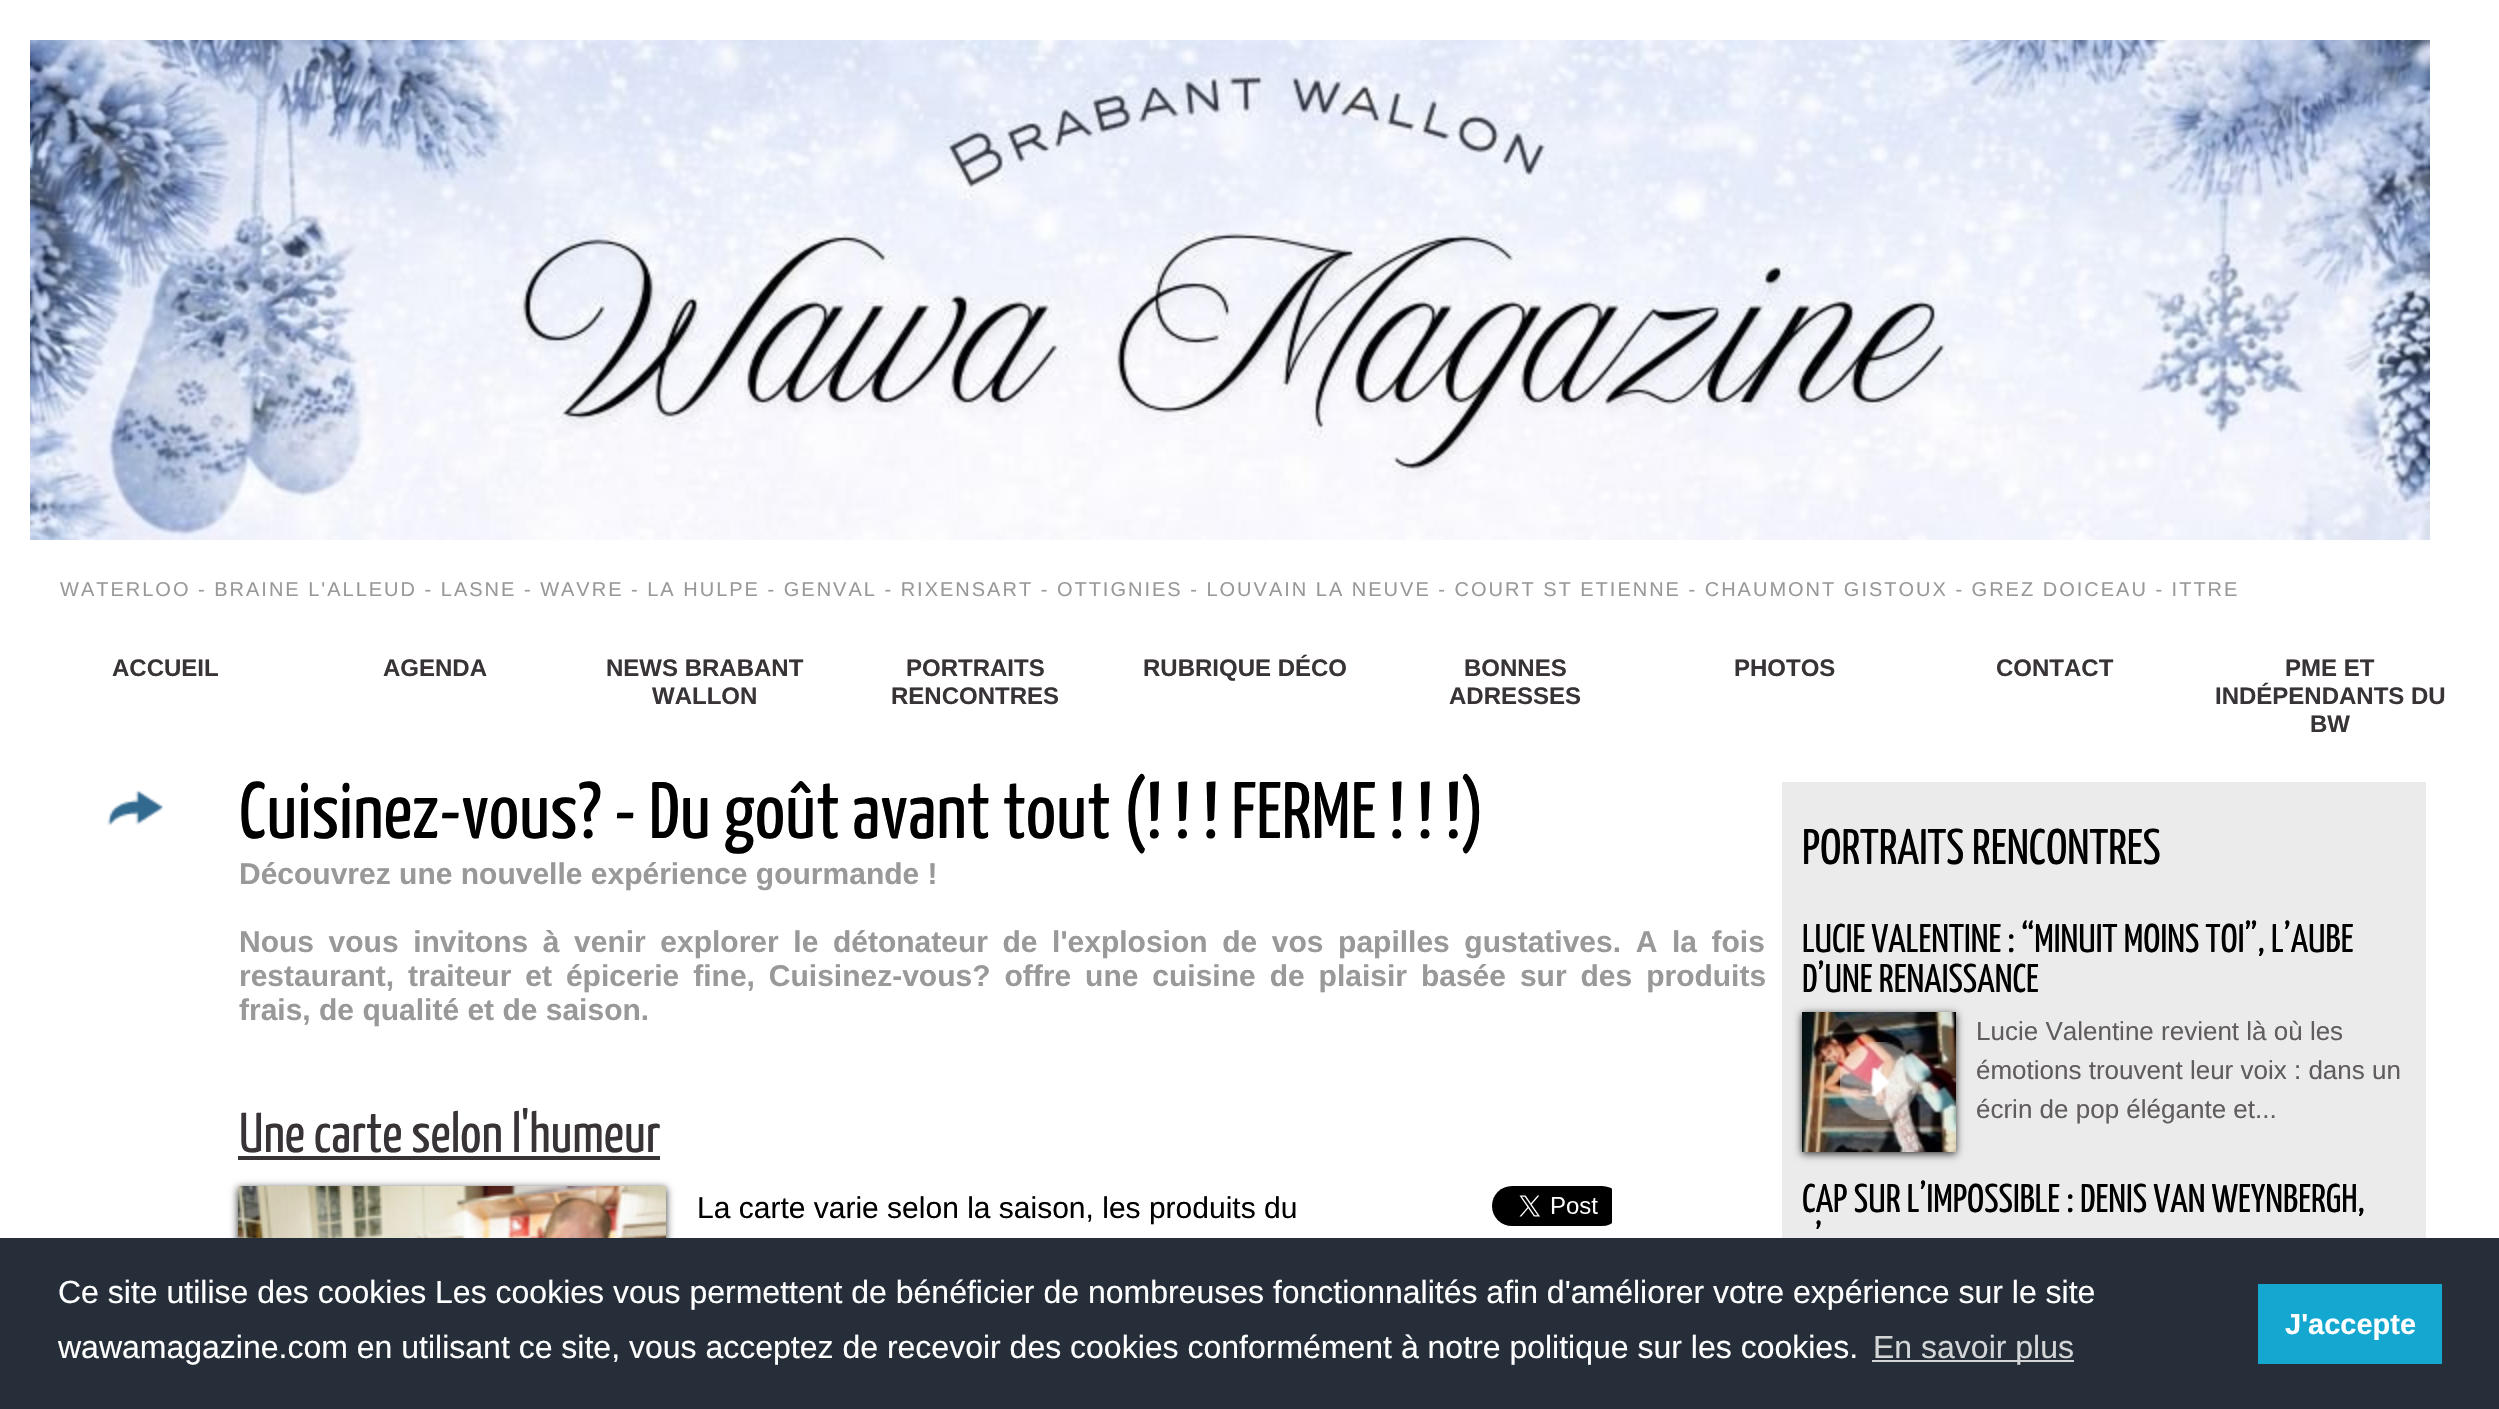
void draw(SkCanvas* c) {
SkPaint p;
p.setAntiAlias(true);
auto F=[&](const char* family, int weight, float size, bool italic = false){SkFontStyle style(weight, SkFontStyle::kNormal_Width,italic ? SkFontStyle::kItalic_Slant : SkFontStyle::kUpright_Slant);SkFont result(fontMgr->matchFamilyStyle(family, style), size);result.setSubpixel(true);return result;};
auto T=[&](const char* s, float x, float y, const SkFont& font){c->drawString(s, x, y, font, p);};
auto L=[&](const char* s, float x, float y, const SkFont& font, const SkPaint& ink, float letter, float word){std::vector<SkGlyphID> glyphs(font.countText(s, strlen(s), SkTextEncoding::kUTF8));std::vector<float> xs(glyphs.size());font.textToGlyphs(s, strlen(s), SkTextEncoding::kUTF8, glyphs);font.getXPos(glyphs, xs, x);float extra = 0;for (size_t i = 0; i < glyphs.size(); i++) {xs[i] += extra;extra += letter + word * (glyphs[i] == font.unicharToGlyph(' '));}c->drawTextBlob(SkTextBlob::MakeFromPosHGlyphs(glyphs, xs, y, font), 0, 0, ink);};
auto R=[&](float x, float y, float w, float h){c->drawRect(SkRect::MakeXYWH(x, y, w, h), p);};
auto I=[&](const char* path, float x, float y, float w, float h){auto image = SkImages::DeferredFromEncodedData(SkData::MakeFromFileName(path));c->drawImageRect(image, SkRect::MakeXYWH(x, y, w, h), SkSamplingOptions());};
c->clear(0xffffffff);
I("1.png",30,40,2400,500);
auto f1 = F("Liberation Sans",400,20);
p.setColor(0xff999999);
L("WATERLOO - BRAINE L'ALLEUD - LASNE - WAVRE - LA HULPE - GENVAL - RIXENSART - OTTIGNIES - LOUVAIN LA NEUVE - COURT ST ETIENNE - CHAUMONT GISTOUX - GREZ DOICEAU - ITTRE",60,596,f1,p,2,0);
auto f2 = F("Liberation Sans",700,24);
p.setColor(0xff383337);
T("ACCUEIL",112,676,f2);
T("AGENDA",383,676,f2);
T("NEWS BRABANT",606,676,f2);
T("WALLON",652,704,f2);
T("PORTRAITS",906,676,f2);
T("RENCONTRES",891,704,f2);
T("RUBRIQUE DÉCO",1143,676,f2);
T("BONNES",1464,676,f2);
T("ADRESSES",1449,704,f2);
T("PHOTOS",1734,676,f2);
T("CONTACT",1996,676,f2);
T("PME ET",2285,676,f2);
T("INDÉPENDANTS DU",2215,704,f2);
T("BW",2310,732,f2);
I("2.png",107,790,57,36);
auto f3 = F("Yanone Kaffeesatz",200,80);
p.setColor(0xff000000);
T("Cuisinez-vous? - Du goût avant tout (! ! ! FERME ! ! !)",239,838,f3);
auto f4 = F("Liberation Sans",700,30);
p.setColor(0xff999999);
T("Découvrez une nouvelle expérience gourmande !",239,884,f4);
L("Nous vous invitons à venir explorer le détonateur de l'explosion de vos papilles gustatives. A la fois",239,952,f4,p,0,6.25);
L("restaurant, traiteur et épicerie fine, Cuisinez-vous? offre une cuisine de plaisir basée sur des produits",239,986,f4,p,0,5.6);
T("frais, de qualité et de saison.",239,1020,f4);
auto f5 = F("Yanone Kaffeesatz",200,56);
p.setColor(0xff383337);
T("Une carte selon l'humeur",239,1152,f5);
R(238,1156,422,4);
p.setColor(0xff333333);
p.setMaskFilter(SkMaskFilter::MakeBlur(kNormal_SkBlurStyle, 4));
c->drawRect(SkRect::MakeXYWH(238,1188,428,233),p);
p.setMaskFilter(nullptr);
I("3.png",238,1186,428,52);
auto f6 = F("Liberation Sans",400,30);
p.setColor(0xff000000);
T("La carte varie selon la saison, les produits du",697,1218,f6);
I("4.png",1492,1186,120,40);
p.setColor(0xffebebeb);
R(1782,782,644,456);
auto f7 = F("Yanone Kaffeesatz",200,50);
p.setColor(0xff000000);
T("PORTRAITS RENCONTRES",1802,864,f7);
auto f8 = F("Yanone Kaffeesatz",200,40);
T("LUCIE VALENTINE : “MINUIT MOINS TOI”, L’AUBE",1802,952,f8);
T("D’UNE RENAISSANCE",1802,992,f8);
p.setColor(0xff333333);
p.setMaskFilter(SkMaskFilter::MakeBlur(kNormal_SkBlurStyle, 4));
c->drawRect(SkRect::MakeXYWH(1802,1014,154,140),p);
p.setMaskFilter(nullptr);
I("5.png",1802,1012,154,140);
I("6.png",1840,1042,78,78);
auto f9 = F("Liberation Sans",400,26);
p.setColor(0xff605c5f);
T("Lucie Valentine revient là où les",1976,1040,f9);
T("émotions trouvent leur voix : dans un",1976,1079,f9);
T("écrin de pop élégante et...",1976,1118,f9);
p.setColor(0xff000000);
T("CAP SUR L’IMPOSSIBLE : DENIS VAN WEYNBERGH,",1802,1212,f8);
T("’",1815,1252,f8);
p.setColor(0xff252e39);
R(0,1238,2499,171);
auto f10 = F("Liberation Sans",400,32);
p.setColor(0xffffffff);
T("Ce site utilise des cookies Les cookies vous permettent de bénéficier de nombreuses fonctionnalités afin d'améliorer votre expérience sur le site",58,1303,f10);
T("wawamagazine.com en utilisant ce site, vous acceptez de recevoir des cookies conformément à notre politique sur les cookies.",58,1358,f10);
p.setColor(0xffd3d5d7);
R(1872,1360,202,2);
T("En savoir plus",1873,1358,f10);
p.setColor(0xff14a7d0);
R(2258,1284,184,80);
auto f11 = F("Liberation Sans",700,29);
p.setColor(0xffffffff);
T("J'accepte",2285,1334,f11);
}
